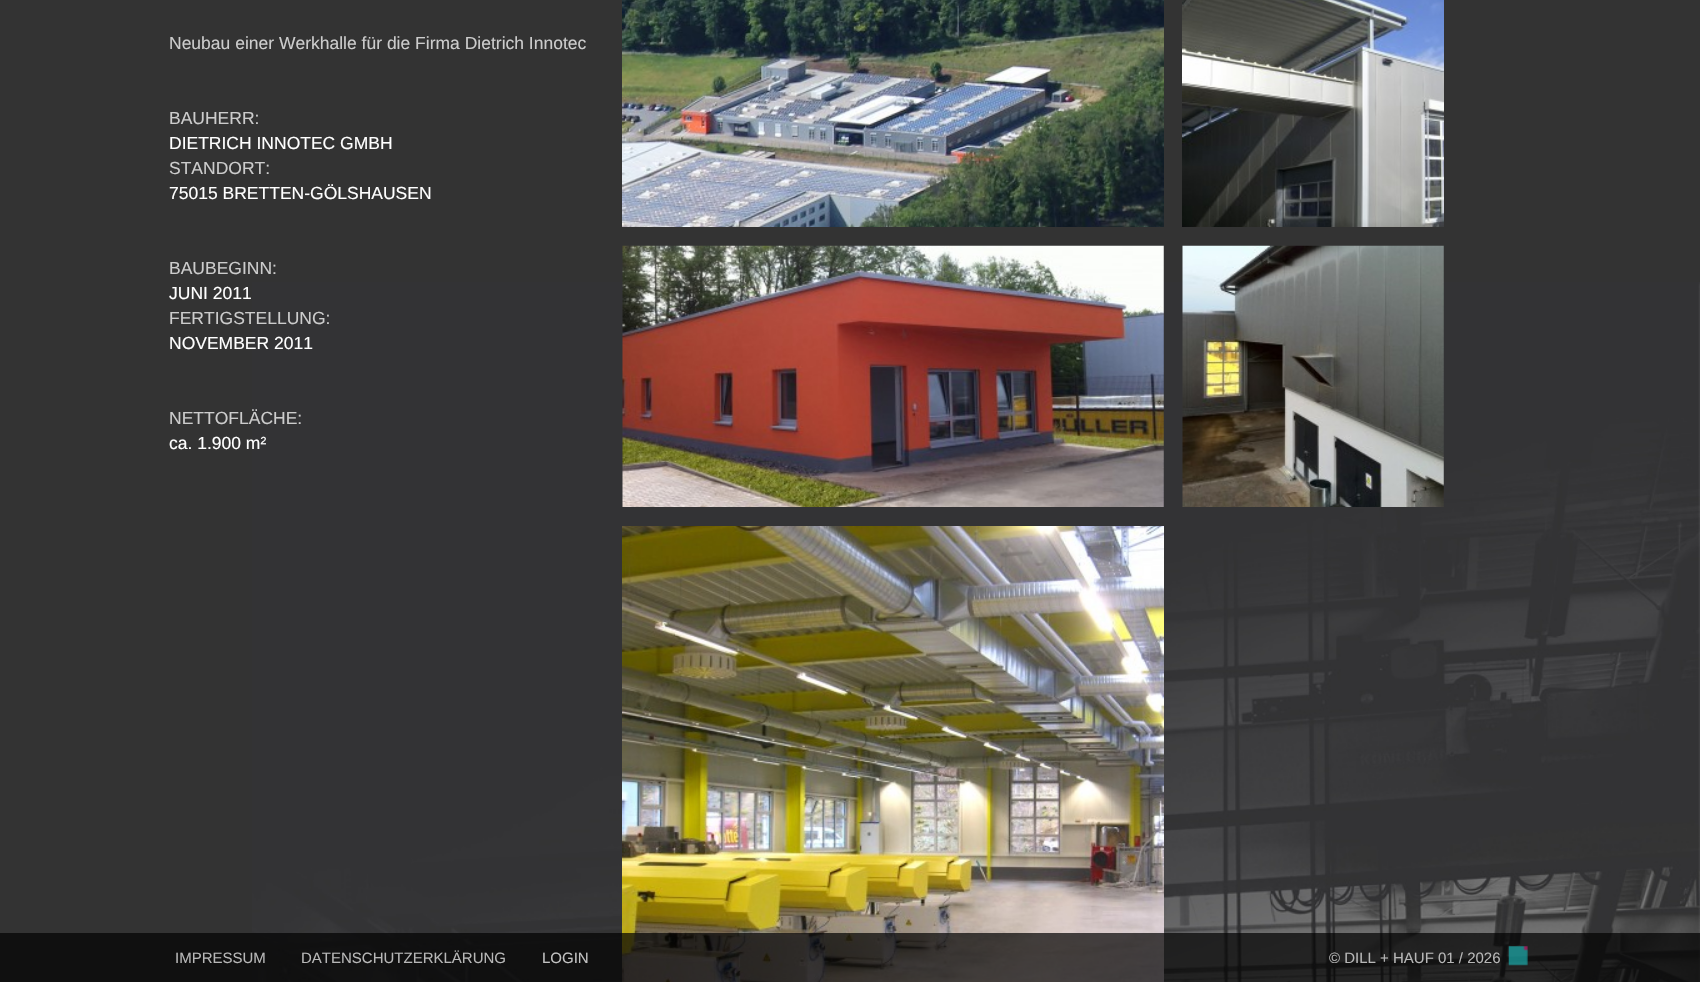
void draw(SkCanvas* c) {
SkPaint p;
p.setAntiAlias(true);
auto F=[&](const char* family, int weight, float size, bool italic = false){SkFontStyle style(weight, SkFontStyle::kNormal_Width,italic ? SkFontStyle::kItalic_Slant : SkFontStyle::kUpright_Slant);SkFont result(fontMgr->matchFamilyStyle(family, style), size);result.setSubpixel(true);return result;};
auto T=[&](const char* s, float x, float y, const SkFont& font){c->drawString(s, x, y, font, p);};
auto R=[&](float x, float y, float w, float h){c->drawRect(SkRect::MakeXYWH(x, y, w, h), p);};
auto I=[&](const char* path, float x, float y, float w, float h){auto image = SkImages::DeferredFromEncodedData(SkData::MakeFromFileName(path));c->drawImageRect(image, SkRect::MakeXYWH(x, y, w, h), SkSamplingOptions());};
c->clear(0xff333333);
I("1.png",252,282,1448,700);
auto f1 = F("Liberation Sans",400,17.5);
p.setColor(0xffcccccc);
T("Neubau einer Werkhalle für die Firma Dietrich Innotec",169,49,f1);
T("BAUHERR:",169,124,f1);
p.setColor(0xffffffff);
T("DIETRICH INNOTEC GMBH",169,149,f1);
p.setColor(0xffcccccc);
T("STANDORT:",169,174,f1);
p.setColor(0xffffffff);
T("75015 BRETTEN-GÖLSHAUSEN",169,199,f1);
p.setColor(0xffcccccc);
T("BAUBEGINN:",169,274,f1);
p.setColor(0xffffffff);
T("JUNI 2011",169,299,f1);
p.setColor(0xffcccccc);
T("FERTIGSTELLUNG:",169,324,f1);
p.setColor(0xffffffff);
T("NOVEMBER 2011",169,349,f1);
p.setColor(0xffcccccc);
T("NETTOFLÄCHE:",169,424,f1);
p.setColor(0xffffffff);
T("ca. 1.900 m²",169,449,f1);
I("2.png",622,0,542,227);
I("3.png",1182,0,262,227);
I("4.png",622,245,542,262);
I("5.png",1182,245,262,262);
I("6.png",622,526,542,456);
p.setColor(0xb3000000);
R(0,933,1700,49);
auto f2 = F("Liberation Sans",400,15);
p.setColor(0xffb7b7b7);
T("IMPRESSUM",175,963,f2);
T("DATENSCHUTZERKLÄRUNG",301,963,f2);
p.setColor(0xffc2c2c2);
T("LOGIN",542,963,f2);
p.setColor(0xffb7b7b7);
T("© DILL + HAUF 01 / 2026",1329,963,f2);
I("7.png",1508,946,20,20);
}
